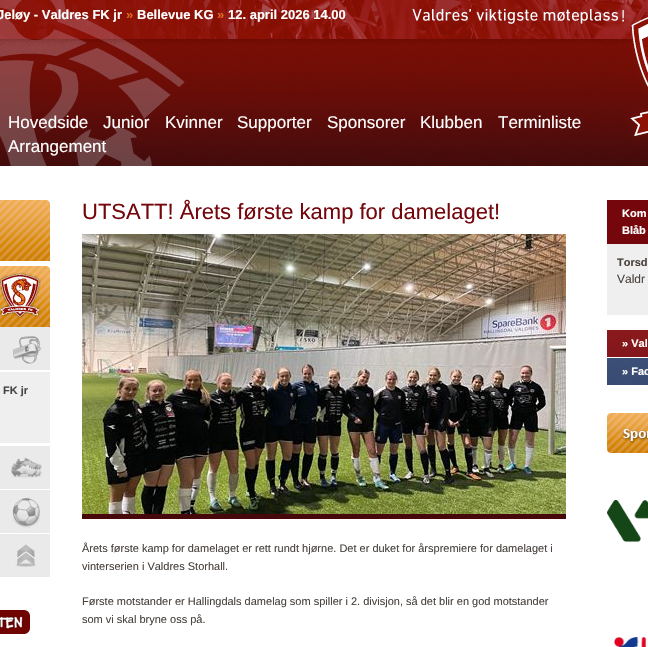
void draw(SkCanvas* c) {
SkPaint p;
p.setAntiAlias(true);
auto F=[&](const char* family, int weight, float size, bool italic = false){SkFontStyle style(weight, SkFontStyle::kNormal_Width,italic ? SkFontStyle::kItalic_Slant : SkFontStyle::kUpright_Slant);SkFont result(fontMgr->matchFamilyStyle(family, style), size);result.setSubpixel(true);return result;};
auto T=[&](const char* s, float x, float y, const SkFont& font){c->drawString(s, x, y, font, p);};
auto R=[&](float x, float y, float w, float h){c->drawRect(SkRect::MakeXYWH(x, y, w, h), p);};
auto I=[&](const char* path, float x, float y, float w, float h){auto image = SkImages::DeferredFromEncodedData(SkData::MakeFromFileName(path));c->drawImageRect(image, SkRect::MakeXYWH(x, y, w, h), SkSamplingOptions());};
c->clear(0xffffffff);
I("1.png",0,0,648,166);
auto f1 = F("Liberation Sans",700,13);
p.setColor(0xffffffff);
T("Jeløy - Valdres FK jr",-3,19,f1);
p.setColor(0xffde6b22);
T("»",126,19,f1);
p.setColor(0xffffffff);
T("Bellevue KG",137,19,f1);
p.setColor(0xffde6b22);
T("»",217,19,f1);
p.setColor(0xffffffff);
T("12. april 2026 14.00",228,19,f1);
auto f2 = F("Liberation Sans",400,17);
T("Hovedside",8,128,f2);
T("Junior",103,128,f2);
T("Kvinner",165,128,f2);
T("Supporter",237,128,f2);
T("Sponsorer",327,128,f2);
T("Klubben",420,128,f2);
T("Terminliste",498,128,f2);
T("Arrangement",8,152,f2);
auto f3 = F("Liberation Sans",400,22);
p.setColor(0xff74060c);
T("UTSATT! Årets første kamp for damelaget!",82,219,f3);
I("2.png",82,234,484,280);
p.setColor(0xff47080c);
R(82,514,484,5);
auto f4 = F("Liberation Sans",400,11);
p.setColor(0xff49423d);
T("Årets første kamp for damelaget er rett rundt hjørne. Det er duket for årspremiere for damelaget i",82,552,f4);
T("vinterserien i Valdres Storhall.",82,570,f4);
T("Første motstander er Hallingdals damelag som spiller i 2. divisjon, så det blir en god motstander",82,605,f4);
T("som vi skal bryne oss på.",82,623,f4);
p.setColor(0xff74060c);
R(607,200,41,44);
auto f5 = F("Liberation Sans",700,11);
p.setColor(0xffffffff);
T("Kom",622,217,f5);
T("Blåb",622,234,f5);
p.setColor(0xffefefef);
R(607,244,41,71);
p.setColor(0xff49423d);
T("Torsd",617,266,f5);
auto f6 = F("Liberation Sans",400,12);
T("Valdr",617,283,f6);
I("3.png",607,330,41,27);
p.setColor(0xffffffff);
T("» Val",622,347,f5);
I("4.png",607,358,41,27);
T("» Fac",622,375,f5);
I("5.png",607,413,41,40);
I("6.png",607,500,41,42);
I("7.png",614,637,34,10);
I("8.png",0,200,50,61);
I("9.png",0,266,50,61);
I("10.png",0,327,50,43);
p.setColor(0xffefefef);
R(0,372,50,71);
p.setColor(0xff444444);
T("FK jr",3,394,f5);
I("11.png",0,446,50,43);
I("12.png",0,490,50,43);
I("13.png",0,534,50,43);
I("14.png",0,610,30,24);
}
